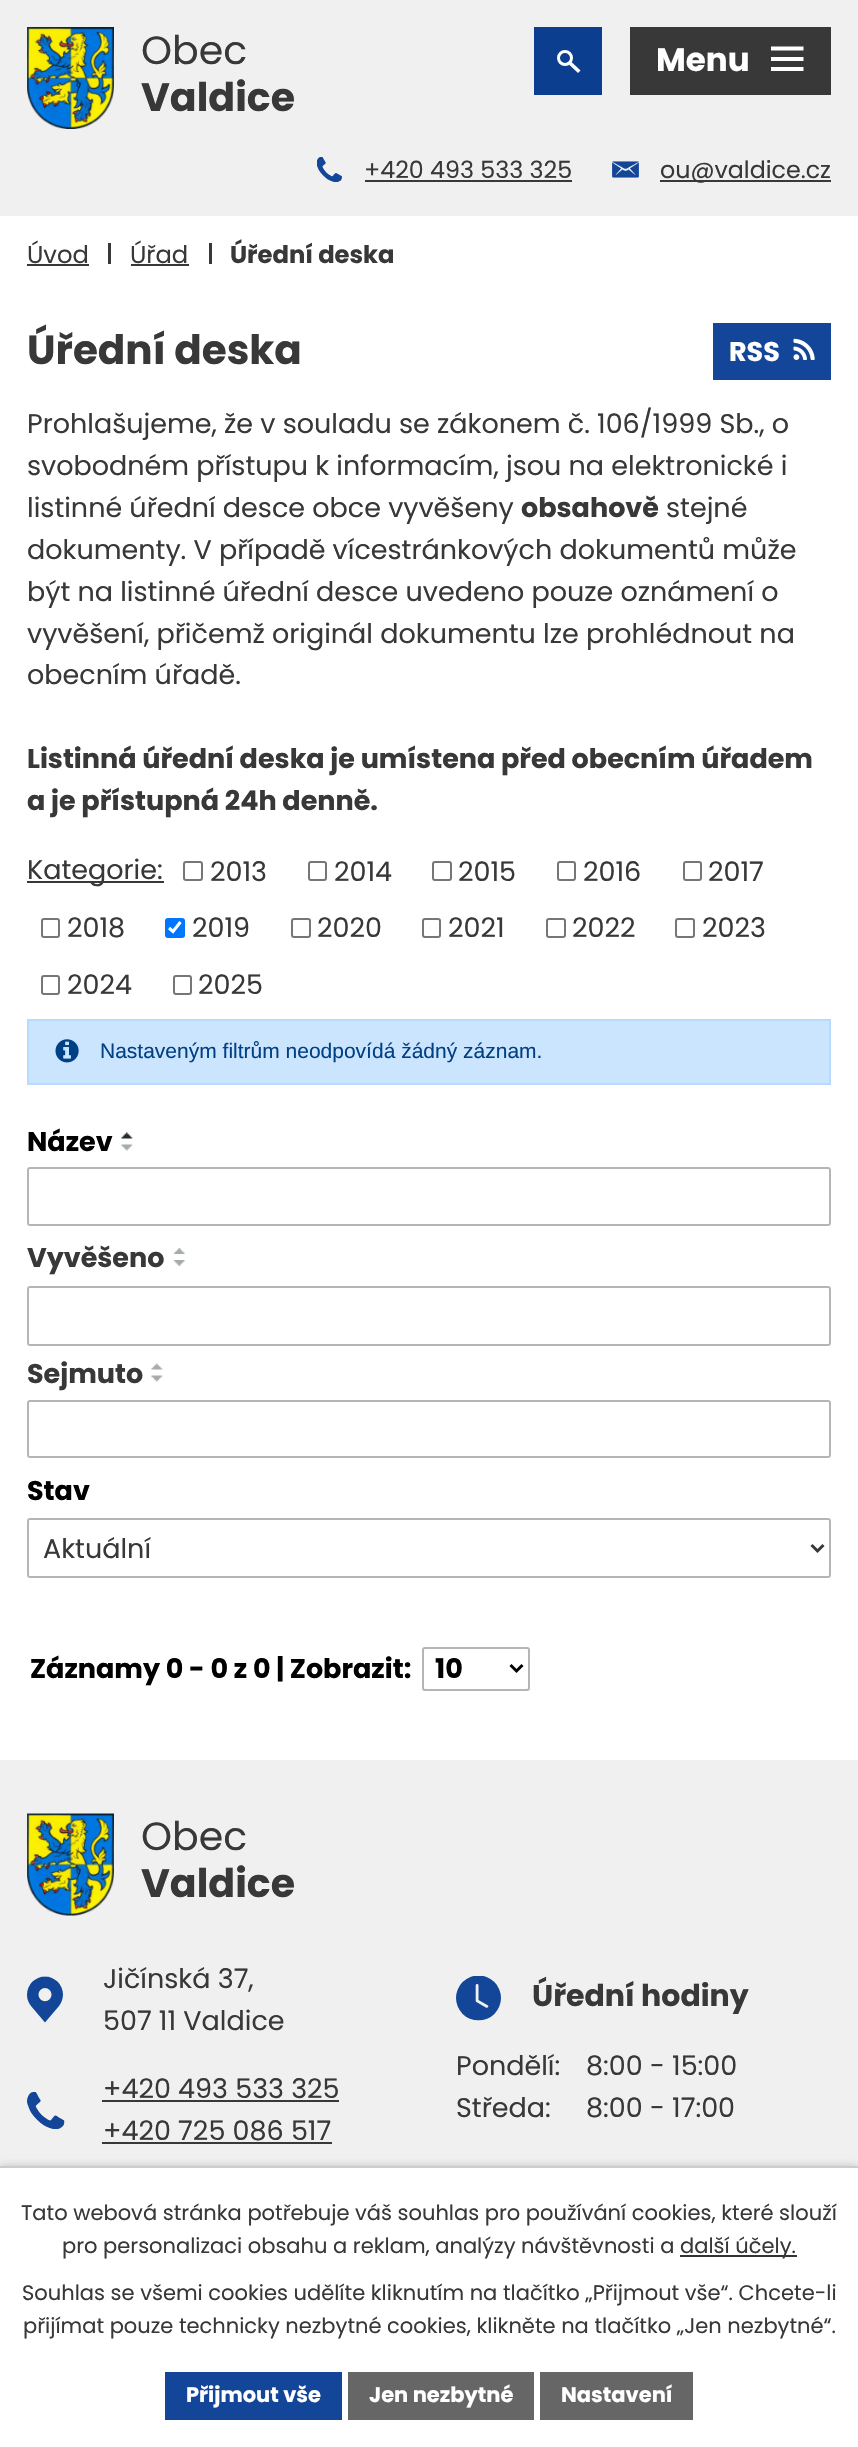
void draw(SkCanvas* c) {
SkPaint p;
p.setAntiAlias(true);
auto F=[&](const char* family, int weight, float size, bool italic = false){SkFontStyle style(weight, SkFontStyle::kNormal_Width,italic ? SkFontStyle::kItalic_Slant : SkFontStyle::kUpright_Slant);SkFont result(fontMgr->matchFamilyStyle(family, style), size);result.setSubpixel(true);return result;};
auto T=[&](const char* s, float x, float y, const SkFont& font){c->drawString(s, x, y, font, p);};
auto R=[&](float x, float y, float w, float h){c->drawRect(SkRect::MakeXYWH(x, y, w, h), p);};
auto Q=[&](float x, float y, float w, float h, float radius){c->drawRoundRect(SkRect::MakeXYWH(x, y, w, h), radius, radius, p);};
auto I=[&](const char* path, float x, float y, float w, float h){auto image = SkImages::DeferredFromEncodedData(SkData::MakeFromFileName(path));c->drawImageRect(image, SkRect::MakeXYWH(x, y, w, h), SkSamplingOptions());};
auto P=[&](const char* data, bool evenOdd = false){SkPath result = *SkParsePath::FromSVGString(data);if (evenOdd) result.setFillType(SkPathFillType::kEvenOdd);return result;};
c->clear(0xffffffff);
p.setColor(0xfff0f0f0);
R(0,0,858,216);
I("1.png",27,27,87,102);
auto f1 = F("Poppins",400,39.5);
p.setColor(0xff383838);
T("Obec",141,64,f1);
auto f2 = F("Poppins",700,39.5);
T("Valdice",141,111,f2);
p.setColor(0xff0c3e8f);
R(534,27,68,68);
p.setStroke(true);
p.setStrokeWidth(3);
p.setColor(0xffffffff);
c->drawCircle(565,58,6.5,p);
p.setStroke(false);
c->drawPath(P("M571.5 62l9 8.5l-2.5 2.5l-9-8.5z"),p);
I("2.png",317,157,25,25);
auto f3 = F("Poppins",400,23.75);
p.setColor(0xff383838);
T("+420 493 533 325",364,178,f3);
R(365,180,207,2);
I("3.png",612,161,27,17);
R(660,180,171,2);
T("ou@valdice.cz",660,178,f3);
R(630,27,201,68);
auto f4 = F("Poppins",700,32.5);
p.setColor(0xffffffff);
T("Menu",656,71,f4);
c->drawPath(P("M771 71v-4h32.5v4zm0-24.5h32.5v4h-32.5zm0 14.5v-4h32.5v4z"),p);
auto f5 = F("Poppins",400,24.25);
p.setColor(0xff383838);
T("Úvod",27,263,f5);
R(27,264,62,2);
R(108,243,3,21);
T("Úřad",130,263,f5);
R(131,264,58,2);
R(209,243,3,21);
auto f6 = F("Poppins",700,24.25);
T("Úřední deska",230,263,f6);
auto f7 = F("Poppins",700,40.5);
T("Úřední deska",27,364,f7);
p.setColor(0xff134698);
R(713,323,118,57);
auto f8 = F("Poppins",700,27);
p.setColor(0xffffffff);
T("RSS",729,361,f8);
I("4.png",793,338,22,22);
auto f9 = F("Poppins",400,27);
p.setColor(0xff383838);
T("Prohlašujeme, že v souladu se zákonem č. 106/1999 Sb., o",27,433,f9);
T("svobodném přístupu k informacím, jsou na elektronické i",27,475,f9);
T("listinné úřední desce obce vyvěšeny",27,517,f9);
T("obsahově",521,517,f8);
T("stejné",666,517,f9);
T("dokumenty. V případě vícestránkových dokumentů může",27,559,f9);
T("být na listinné úřední desce uvedeno pouze oznámení o",27,601,f9);
T("vyvěšení, přičemž originál dokumentu lze prohlédnout na",27,643,f9);
T("obecním úřadě.",27,684,f9);
T("Listinná úřední deska je umístena před obecním úřadem",27,768,f8);
T("a je přístupná 24h denně.",27,810,f8);
R(27,881,137,2);
T("Kategorie:",27,879,f9);
p.setStroke(true);
p.setStrokeWidth(2);
p.setColor(0xff767676);
c->drawRoundRect(SkRect::MakeXYWH(184,862,18,18),2,2,p);
p.setStroke(false);
p.setColor(0xff383838);
T("2013",210,881,f9);
p.setStroke(true);
p.setColor(0xff767676);
c->drawRoundRect(SkRect::MakeXYWH(309,862,17,18),2,2,p);
p.setStroke(false);
p.setColor(0xff383838);
T("2014",334,881,f9);
p.setStroke(true);
p.setColor(0xff767676);
c->drawRoundRect(SkRect::MakeXYWH(433,862,18,18),2,2,p);
p.setStroke(false);
p.setColor(0xff383838);
T("2015",458,881,f9);
p.setStroke(true);
p.setColor(0xff767676);
c->drawRoundRect(SkRect::MakeXYWH(558,862,17,18),2,2,p);
p.setStroke(false);
p.setColor(0xff383838);
T("2016",583,881,f9);
p.setStroke(true);
p.setColor(0xff767676);
c->drawRoundRect(SkRect::MakeXYWH(684,862,17,18),2,2,p);
p.setStroke(false);
p.setColor(0xff383838);
T("2017",708,881,f9);
p.setStroke(true);
p.setColor(0xff767676);
c->drawRoundRect(SkRect::MakeXYWH(42,919,17,18),2,2,p);
p.setStroke(false);
p.setColor(0xff383838);
T("2018",67,937,f9);
p.setColor(0xff0075ff);
Q(165,918,20,20,3);
p.setStroke(true);
p.setStrokeWidth(3.1);
p.setColor(0xffffffff);
c->drawPath(P("M169 928l4 3.5l7.5-9.5"),p);
p.setStroke(false);
p.setColor(0xff383838);
T("2019",192,937,f9);
p.setStroke(true);
p.setStrokeWidth(2);
p.setColor(0xff767676);
c->drawRoundRect(SkRect::MakeXYWH(292,919,18,18),2,2,p);
p.setStroke(false);
p.setColor(0xff383838);
T("2020",317,937,f9);
p.setStroke(true);
p.setColor(0xff767676);
c->drawRoundRect(SkRect::MakeXYWH(423,919,17,18),2,2,p);
p.setStroke(false);
p.setColor(0xff383838);
T("2021",448,937,f9);
p.setStroke(true);
p.setColor(0xff767676);
c->drawRoundRect(SkRect::MakeXYWH(547,919,18,18),2,2,p);
p.setStroke(false);
p.setColor(0xff383838);
T("2022",572,937,f9);
p.setStroke(true);
p.setColor(0xff767676);
c->drawRoundRect(SkRect::MakeXYWH(676,919,18,18),2,2,p);
p.setStroke(false);
p.setColor(0xff383838);
T("2023",702,937,f9);
p.setStroke(true);
p.setColor(0xff767676);
c->drawRoundRect(SkRect::MakeXYWH(42,976,17,18),2,2,p);
p.setStroke(false);
p.setColor(0xff383838);
T("2024",67,994,f9);
p.setStroke(true);
p.setColor(0xff767676);
c->drawRoundRect(SkRect::MakeXYWH(174,976,17,18),2,2,p);
p.setStroke(false);
p.setColor(0xff383838);
T("2025",198,994,f9);
p.setColor(0xffcce5ff);
c->drawRect(SkRect::MakeXYWH(28,1020,802,64),p);
p.setStroke(true);
p.setColor(0xffb8daff);
c->drawRect(SkRect::MakeXYWH(28,1020,802,64),p);
I("5.png",55,1039,24,24);
auto f10 = F("Liberation Sans",400,21);
p.setStroke(false);
p.setColor(0xff004085);
T("Nastaveným filtrům neodpovídá žádný záznam.",100,1058,f10);
p.setColor(0xff000000);
T("Název",27,1151,f8);
I("6.png",121,1132,12,7);
I("7.png",121,1144,12,7);
p.setColor(0xff383838);
T("Vyvěšeno",27,1267,f8);
I("8.png",173,1248,12,6);
I("9.png",173,1260,12,6);
T("Sejmuto",27,1383,f8);
I("10.png",151,1363,12,7);
I("7.png",151,1375,12,7);
p.setColor(0xff000000);
T("Stav",27,1500,f8);
p.setStroke(true);
p.setColor(0xffb5b5b5);
c->drawRoundRect(SkRect::MakeXYWH(28,1168,802,57),2,2,p);
c->drawRoundRect(SkRect::MakeXYWH(28,1287,802,58),2,2,p);
c->drawRoundRect(SkRect::MakeXYWH(28,1401,802,56),2,2,p);
c->drawRoundRect(SkRect::MakeXYWH(28,1519,802,58),2,2,p);
p.setStrokeWidth(3);
p.setColor(0xff383838);
c->drawPath(P("M811.5 1545l6 6l6-6"),p);
p.setStroke(false);
T("Aktuální",43,1558,f9);
p.setColor(0xff000000);
T("Záznamy 0 - 0 z 0 | Zobrazit:",30,1678,f8);
p.setStroke(true);
p.setStrokeWidth(2);
p.setColor(0xffb5b5b5);
c->drawRoundRect(SkRect::MakeXYWH(423,1648,106,42),2,2,p);
p.setStrokeWidth(3);
p.setColor(0xff000000);
c->drawPath(P("M510.5 1665l6 6l6-6"),p);
p.setStroke(false);
T("10",435,1678,f8);
p.setColor(0xfff0f0f0);
R(0,1760,858,406);
I("11.png",27,1813,87,103);
p.setColor(0xff383838);
T("Obec",141,1850,f1);
T("Valdice",141,1897,f2);
I("12.png",27,1976,36,47);
T("Jičínská 37,",103,1988,f9);
T("507 11 Valdice",103,2030,f9);
T("+420 493 533 325",103,2098,f9);
R(102,2100,237,2);
I("13.png",27,2092,38,37);
T("+420 725 086 517",103,2140,f9);
R(102,2142,230,2);
I("14.png",456,1976,45,45);
auto f11 = F("Poppins",700,30);
T("Úřední hodiny",532,2006,f11);
T("Pondělí:",456,2075,f9);
T("8:00 - 15:00",586,2075,f9);
T("Středa:",456,2117,f9);
T("8:00 - 17:00",586,2117,f9);
p.setColor(0x33000000);
p.setMaskFilter(SkMaskFilter::MakeBlur(kNormal_SkBlurStyle, 4));
c->drawRect(SkRect::MakeXYWH(0,2166,858,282),p);
p.setMaskFilter(nullptr);
p.setColor(0xffffffff);
R(0,2168,858,279);
p.setColor(0xffcccccc);
R(0,2166,858,2);
auto f12 = F("Poppins",400,21);
p.setColor(0xff383838);
T("Tato webová stránka potřebuje váš souhlas pro používání cookies, které slouží",21,2220,f12);
T("pro personalizaci obsahu a reklam, analýzy návštěvnosti a",62,2253,f12);
p.setColor(0xff333333);
R(680,2255,117,2);
p.setColor(0xff383838);
T("další účely.",680,2253,f12);
T("Souhlas se všemi cookies udělíte kliknutím na tlačítko „Přijmout vše“. Chcete-li",22,2300,f12);
T("přijímat pouze technicky nezbytné cookies, klikněte na tlačítko „Jen nezbytné“.",23,2333,f12);
p.setColor(0xff134698);
R(165,2372,177,48);
auto f13 = F("Poppins",700,21);
p.setColor(0xffffffff);
T("Přijmout vše",186,2402,f13);
p.setColor(0xff666666);
R(348,2372,186,48);
p.setColor(0xffffffff);
T("Jen nezbytné",369,2402,f13);
p.setColor(0xff666666);
R(540,2372,153,48);
p.setColor(0xffffffff);
T("Nastavení",561,2402,f13);
}
